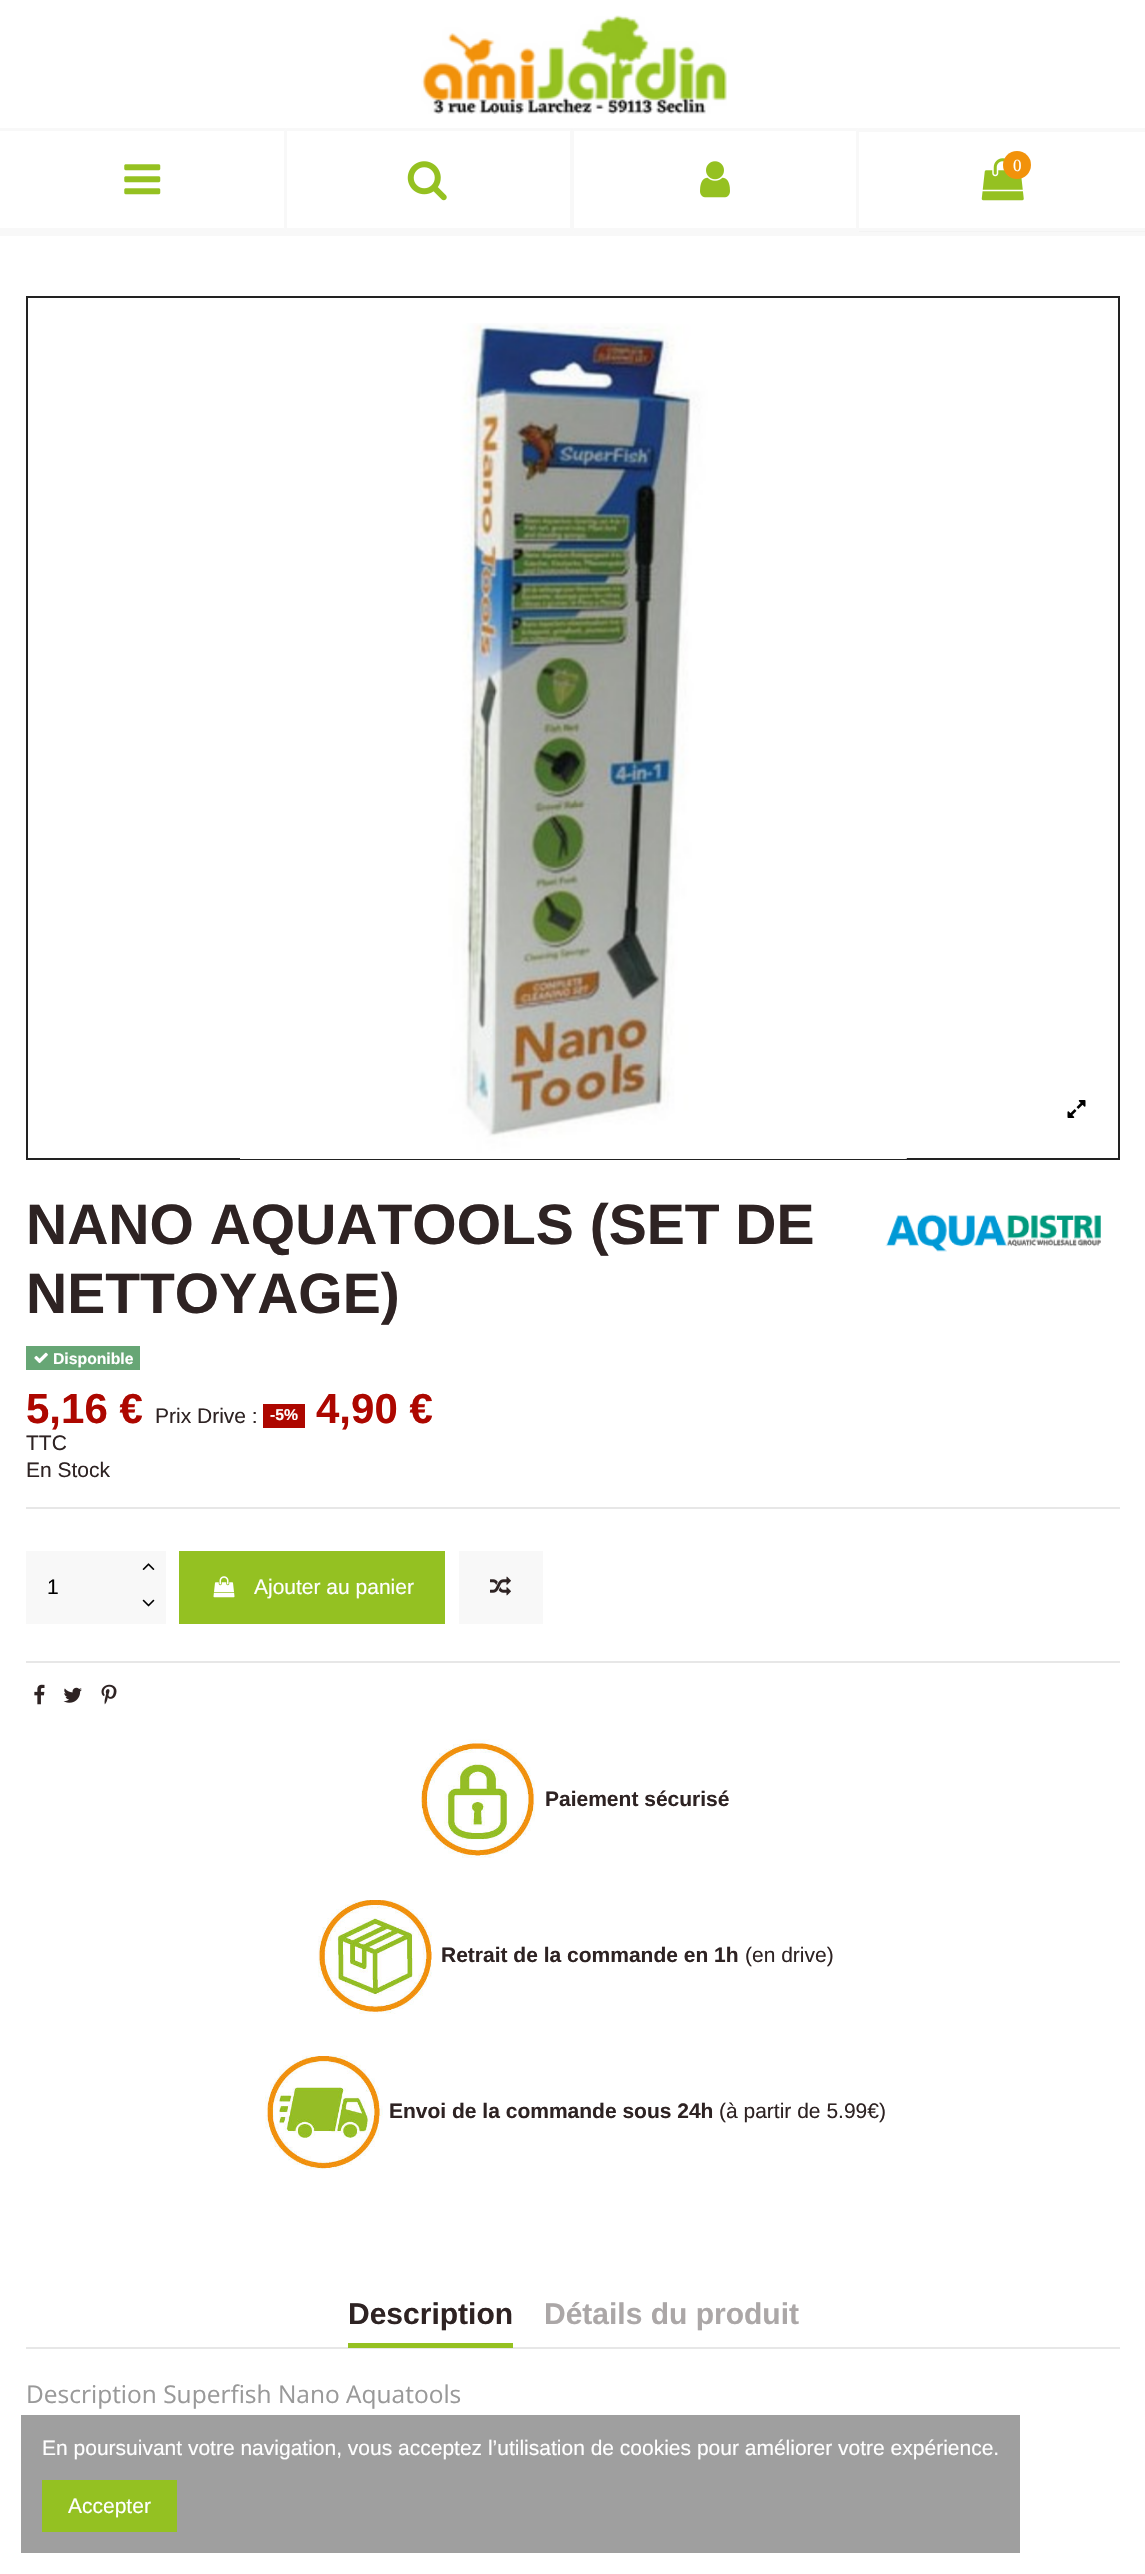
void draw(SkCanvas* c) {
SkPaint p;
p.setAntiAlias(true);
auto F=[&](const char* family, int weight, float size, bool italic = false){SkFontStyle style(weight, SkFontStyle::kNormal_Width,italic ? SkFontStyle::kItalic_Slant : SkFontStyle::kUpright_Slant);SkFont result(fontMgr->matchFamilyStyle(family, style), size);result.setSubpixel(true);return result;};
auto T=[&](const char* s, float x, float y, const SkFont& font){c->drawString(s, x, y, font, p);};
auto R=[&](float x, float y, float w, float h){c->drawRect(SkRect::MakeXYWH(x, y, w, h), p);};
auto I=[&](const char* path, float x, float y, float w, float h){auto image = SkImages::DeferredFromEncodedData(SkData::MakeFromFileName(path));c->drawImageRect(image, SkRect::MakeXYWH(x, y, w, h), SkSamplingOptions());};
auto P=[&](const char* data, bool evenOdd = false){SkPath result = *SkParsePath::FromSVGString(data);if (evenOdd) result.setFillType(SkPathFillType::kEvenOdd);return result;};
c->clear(0xffffffff);
p.setColor(0xfff8f8f8);
R(859,228,286,3);
R(0,231,1145,5);
p.setColor(0xfff3f3f3);
R(859,231,286,1);
I("1.png",421,15,306,99);
p.setColor(0xfff8f8f8);
c->drawPath(P("M0 128h287l-3 3h-284z"),p);
p.setColor(0x4ae8e8e8);
c->drawPath(P("M287 128v103l-3-3v-97z"),p);
c->drawPath(P("M287 231h-287v-3h284z"),p);
I("2.png",124,164,37,31);
p.setColor(0xfff8f8f8);
c->drawPath(P("M287 128h287l-4 3h-283z"),p);
p.setColor(0x4ae8e8e8);
c->drawPath(P("M574 128v103l-4-3v-97z"),p);
p.setColor(0xfff8f8f8);
c->drawPath(P("M574 231h-287v-3h283z"),p);
I("3.png",407,161,40,40);
c->drawPath(P("M574 128h285l-3 3h-282z"),p);
p.setColor(0x4ae8e8e8);
c->drawPath(P("M859 128v103l-3-3v-97z"),p);
c->drawPath(P("M859 231h-285v-3h282z"),p);
I("4.png",700,161,30,37);
p.setColor(0xfff8f8f8);
R(859,128,286,4);
I("5.png",981,158,43,43);
p.setColor(0xfff2920b);
c->drawCircle(1017,165,14,p);
auto f1 = F("Liberation Serif",400,17);
p.setColor(0xffffffff);
T("0",1013,171,f1);
p.setStroke(true);
p.setStrokeWidth(2);
p.setColor(0xff222222);
c->drawRect(SkRect::MakeXYWH(27,297,1092,862),p);
I("6.png",240,323,667,836);
I("7.png",1067,1100,19,18);
p.setStroke(false);
p.setColor(0xffe7e7e7);
R(26,1507,1094,2);
auto f2 = F("Liberation Sans",700,57);
p.setColor(0xff2e2323);
T("NANO AQUATOOLS (SET DE",26,1244,f2);
T("NETTOYAGE)",26,1313,f2);
I("8.png",885,1214,216,38);
p.setColor(0xff67a675);
R(26,1346,114,24);
I("9.png",34,1352,14,12);
auto f3 = F("Liberation Sans",700,15.75);
p.setColor(0xffffffff);
T("Disponible",53,1364,f3);
auto f4 = F("Liberation Sans",700,42);
p.setColor(0xffad0700);
T("5,16 €",26,1423,f4);
auto f5 = F("Liberation Sans",400,21);
p.setColor(0xff2e2323);
T("Prix Drive :",155,1423,f5);
p.setColor(0xffad0700);
R(263,1404,42,24);
p.setColor(0xffffffff);
T("-5%",270,1420,f3);
p.setColor(0xffad0700);
T("4,90 €",316,1423,f4);
p.setColor(0xff2e2323);
T("TTC",26,1450,f5);
T("En Stock",26,1477,f5);
p.setColor(0xfff8f8f8);
R(26,1551,105,73);
p.setColor(0xff000000);
T("1",47,1594,f5);
p.setColor(0xfff8f8f8);
R(131,1551,35,73);
I("10.png",142,1563,13,7);
I("11.png",142,1599,13,8);
p.setColor(0xff94c122);
R(179,1551,266,73);
I("12.png",213,1576,22,22);
p.setColor(0xffffffff);
T("Ajouter au panier",254,1594,f5);
p.setColor(0xfff8f8f8);
R(459,1551,84,73);
I("13.png",490,1576,21,20);
p.setColor(0xffe7e7e7);
R(26,1661,1094,2);
I("14.png",34,1684,11,21);
I("15.png",63,1687,19,16);
I("16.png",101,1684,16,21);
I("17.png",421,1739,114,119);
auto f6 = F("Liberation Sans",700,21);
p.setColor(0xff2e2323);
T("Paiement sécurisé",545,1806,f6);
I("18.png",318,1900,114,114);
T("Retrait de la commande en 1h",441,1962,f6);
T("(en drive)",745,1962,f5);
I("19.png",265,2055,118,115);
T("Envoi de la commande sous 24h",389,2118,f6);
T("(à partir de 5.99€)",719,2118,f5);
p.setColor(0xffe7e7e7);
R(26,2347,1094,2);
p.setColor(0xff95c121);
R(348,2343,165,5);
auto f7 = F("Liberation Sans",700,30);
p.setColor(0xff2e2323);
T("Description",348,2324,f7);
p.setColor(0xffaba7a7);
T("Détails du produit",544,2324,f7);
auto f8 = F("Open Sans",400,24.5);
p.setColor(0xff999999);
T("Description Superfish Nano Aquatools",26,2403,f8);
p.setColor(0xff9f9f9f);
R(21,2415,999,138);
p.setColor(0xffffffff);
T("En poursuivant votre navigation, vous acceptez l’utilisation de cookies pour améliorer votre expérience.",42,2455,f5);
p.setColor(0xff94c122);
R(42,2480,135,52);
p.setColor(0xffffffff);
T("Accepter",68,2513,f5);
}
